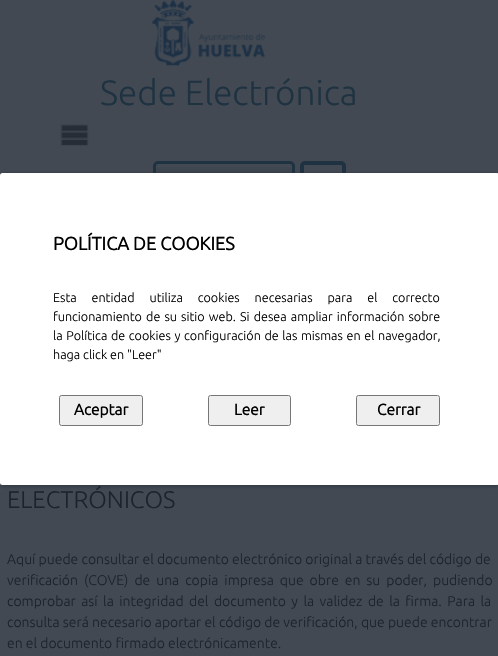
void draw(SkCanvas* c) {
SkPaint p;
p.setAntiAlias(true);
auto F=[&](const char* family, int weight, float size, bool italic = false){SkFontStyle style(weight, SkFontStyle::kNormal_Width,italic ? SkFontStyle::kItalic_Slant : SkFontStyle::kUpright_Slant);SkFont result(fontMgr->matchFamilyStyle(family, style), size);result.setSubpixel(true);return result;};
auto T=[&](const char* s, float x, float y, const SkFont& font){c->drawString(s, x, y, font, p);};
auto L=[&](const char* s, float x, float y, const SkFont& font, const SkPaint& ink, float letter, float word){std::vector<SkGlyphID> glyphs(font.countText(s, strlen(s), SkTextEncoding::kUTF8));std::vector<float> xs(glyphs.size());font.textToGlyphs(s, strlen(s), SkTextEncoding::kUTF8, glyphs);font.getXPos(glyphs, xs, x);float extra = 0;for (size_t i = 0; i < glyphs.size(); i++) {xs[i] += extra;extra += letter + word * (glyphs[i] == font.unicharToGlyph(' '));}c->drawTextBlob(SkTextBlob::MakeFromPosHGlyphs(glyphs, xs, y, font), 0, 0, ink);};
auto R=[&](float x, float y, float w, float h){c->drawRect(SkRect::MakeXYWH(x, y, w, h), p);};
auto Q=[&](float x, float y, float w, float h, float radius){c->drawRoundRect(SkRect::MakeXYWH(x, y, w, h), radius, radius, p);};
auto I=[&](const char* path, float x, float y, float w, float h){auto image = SkImages::DeferredFromEncodedData(SkData::MakeFromFileName(path));c->drawImageRect(image, SkRect::MakeXYWH(x, y, w, h), SkSamplingOptions());};
c->clear(0xff424952);
I("1.png",151,0,115,67);
auto f1 = F("Ubuntu",300,35);
p.setColor(0xff1e3241);
T("Sede Electrónica",100,105,f1);
I("2.png",60,123,29,24);
{
const SkColor colors[] = {0xff424952,0xff1e3241};
const float stops[] = {0,1};
const SkPoint ends[] = {{224,164}, {224,200}};
p.setShader(SkGradientShader::MakeLinear(ends, colors, stops, 2, SkTileMode::kClamp));
p.setAlpha(255);
}
R(153,167,142,6);
p.setStroke(true);
p.setStrokeWidth(3);
p.setShader(nullptr);
p.setColor(0xff1e3241);
c->drawRoundRect(SkRect::MakeXYWH(154.5,162.5,139,39),3.5,3.5,p);
p.setStrokeWidth(4);
c->drawRoundRect(SkRect::MakeXYWH(302,163,42,36),3,3,p);
p.setStroke(false);
p.setColor(0xbf212934);
p.setMaskFilter(SkMaskFilter::MakeBlur(kNormal_SkBlurStyle, 2));
c->drawRoundRect(SkRect::MakeXYWH(0,174,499,312),2.5,2.5,p);
p.setMaskFilter(nullptr);
p.setColor(0xffffffff);
Q(0,173,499,312,2.5);
auto f2 = F("Ubuntu",700,18.25);
p.setColor(0xff000000);
T("POLÍTICA DE COOKIES",53,250,f2);
auto f3 = F("Ubuntu",300,12.6);
L("Esta entidad utiliza cookies necesarias para el correcto",53,302,f3,p,0,12);
L("funcionamiento de su sitio web. Si desea ampliar información sobre",53,321,f3,p,0,1.25);
L("la Política de cookies y configuración de las mismas en el navegador,",53,340,f3,p,0,.75);
T("haga click en \"Leer\"",53,359,f3);
p.setColor(0xffefefef);
c->drawRoundRect(SkRect::MakeXYWH(59.5,395.5,83,30),2,2,p);
p.setStroke(true);
p.setStrokeWidth(1);
p.setColor(0xff767676);
c->drawRoundRect(SkRect::MakeXYWH(59.5,395.5,83,30),2,2,p);
auto f4 = F("Ubuntu",700,15.5);
p.setStroke(false);
p.setColor(0xff000000);
T("Aceptar",74,415,f4);
p.setColor(0xffefefef);
c->drawRoundRect(SkRect::MakeXYWH(208.5,395.5,82,30),2,2,p);
p.setStroke(true);
p.setColor(0xff767676);
c->drawRoundRect(SkRect::MakeXYWH(208.5,395.5,82,30),2,2,p);
p.setStroke(false);
p.setColor(0xff000000);
T("Leer",234,415,f4);
p.setColor(0xffefefef);
c->drawRoundRect(SkRect::MakeXYWH(356.5,395.5,83,30),2,2,p);
p.setStroke(true);
p.setColor(0xff767676);
c->drawRoundRect(SkRect::MakeXYWH(356.5,395.5,83,30),2,2,p);
p.setStroke(false);
p.setColor(0xff000000);
T("Cerrar",377,415,f4);
auto f5 = F("Ubuntu",300,24);
p.setColor(0xff1c232c);
T("ELECTRÓNICOS",7,508,f5);
auto f6 = F("Ubuntu",300,14);
T("Aquí puede consultar el documento electrónico original a través del código de",7,564,f6);
L("verificación (COVE) de una copia impresa que obre en su poder, pudiendo",7,585,f6,p,0,2.75);
L("comprobar así la integridad del documento y la validez de la firma. Para la",7,606,f6,p,0,2.25);
T("consulta será necesario aportar el código de verificación, que puede encontrar",7,627,f6);
T("en el documento firmado electrónicamente.",7,648,f6);
}
